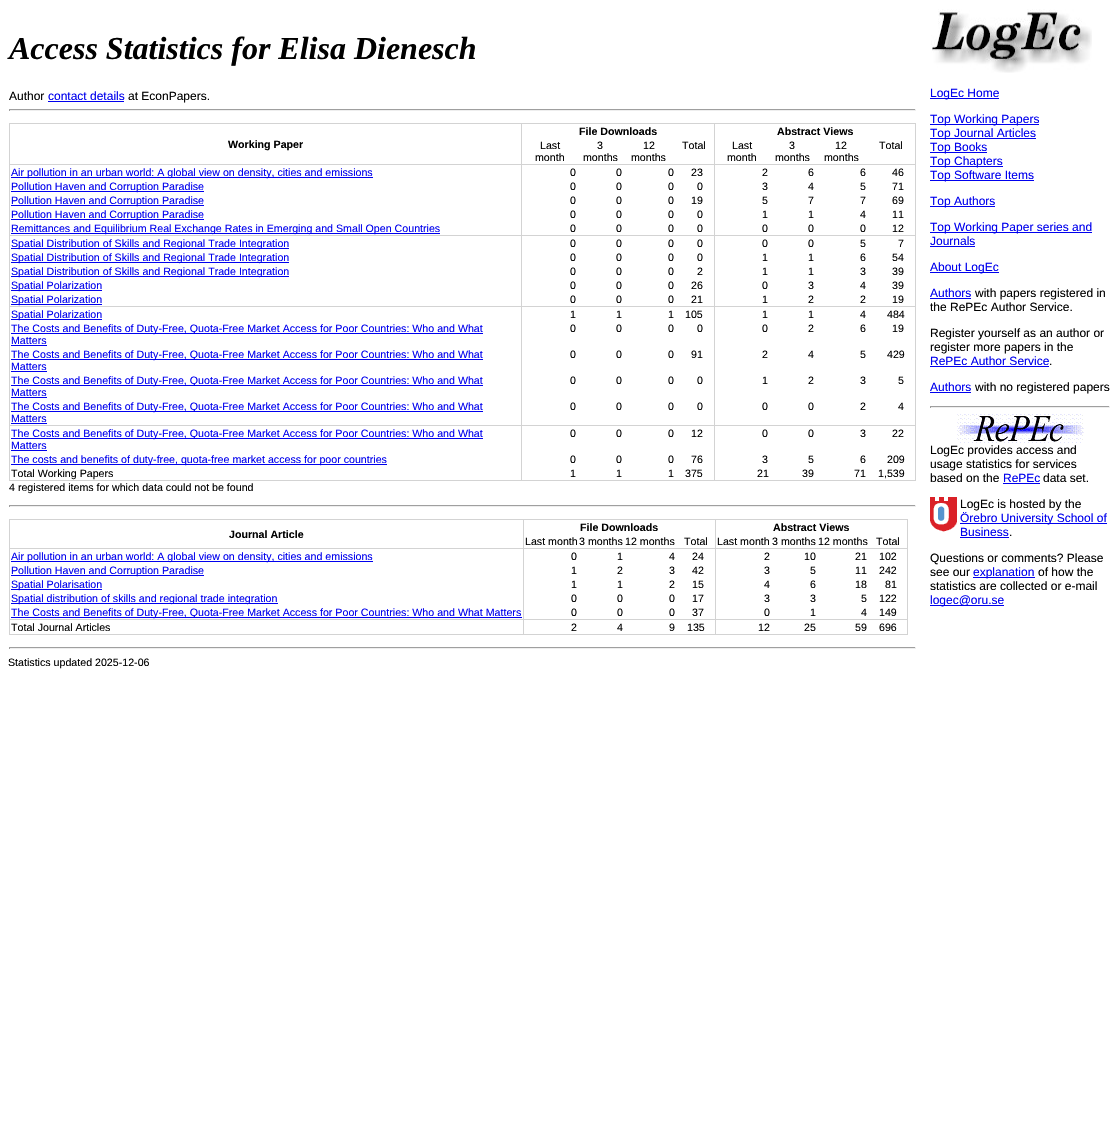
void draw(SkCanvas* c) {
SkPaint p;
p.setAntiAlias(true);
auto F=[&](const char* family, int weight, float size, bool italic = false){SkFontStyle style(weight, SkFontStyle::kNormal_Width,italic ? SkFontStyle::kItalic_Slant : SkFontStyle::kUpright_Slant);SkFont result(fontMgr->matchFamilyStyle(family, style), size);result.setSubpixel(true);return result;};
auto T=[&](const char* s, float x, float y, const SkFont& font){c->drawString(s, x, y, font, p);};
auto R=[&](float x, float y, float w, float h){c->drawRect(SkRect::MakeXYWH(x, y, w, h), p);};
auto I=[&](const char* path, float x, float y, float w, float h){auto image = SkImages::DeferredFromEncodedData(SkData::MakeFromFileName(path));c->drawImageRect(image, SkRect::MakeXYWH(x, y, w, h), SkSamplingOptions());};
c->clear(0xffffffff);
auto f1 = F("Liberation Serif",700,32,true);
p.setColor(0xff000000);
T("Access Statistics for Elisa Dienesch",9,59,f1);
auto f2 = F("Liberation Sans",400,12);
T("Author",9,100,f2);
p.setColor(0xff0000ee);
T("contact details",48,100,f2);
R(48,101,76,1);
p.setColor(0xff000000);
T("at EconPapers.",128,100,f2);
p.setColor(0xff9f9f9f);
R(9,109,907,1);
p.setColor(0xffeeeeee);
R(915,109,1,2);
R(9,110,907,1);
p.setColor(0xff9f9f9f);
R(9,109,1,2);
p.setColor(0xffd3d3d3);
R(521,123,1,358);
R(9,123,1,358);
R(714,123,1,358);
R(915,123,1,358);
R(9,123,907,1);
auto f3 = F("Liberation Sans",700,10.65);
p.setColor(0xff000000);
T("File Downloads",579,135,f3);
T("Abstract Views",777,135,f3);
T("Working Paper",228,148,f3);
p.setColor(0xffd3d3d3);
R(9,164,907,1);
auto f4 = F("Liberation Sans",400,10.65);
p.setColor(0xff000000);
T("Last",540,149,f4);
T("month",535,161,f4);
T("3",597,149,f4);
T("months",583,161,f4);
T("12",643,149,f4);
T("months",631,161,f4);
T("Total",682,149,f4);
T("Last",732,149,f4);
T("month",727,161,f4);
T("3",789,149,f4);
T("months",775,161,f4);
T("12",835,149,f4);
T("months",824,161,f4);
T("Total",879,149,f4);
p.setColor(0xff0000ee);
R(11,177,362,1);
T("Air pollution in an urban world: A global view on density, cities and emissions",11,176,f4);
p.setColor(0xff000000);
T("0",570,176,f4);
T("0",616,176,f4);
T("0",668,176,f4);
T("23",691,176,f4);
T("2",762,176,f4);
T("6",808,176,f4);
T("6",860,176,f4);
T("46",892,176,f4);
p.setColor(0xff0000ee);
R(11,191,193,1);
T("Pollution Haven and Corruption Paradise",11,190,f4);
p.setColor(0xff000000);
T("0",570,190,f4);
T("0",616,190,f4);
T("0",668,190,f4);
T("0",697,190,f4);
T("3",762,190,f4);
T("4",808,190,f4);
T("5",860,190,f4);
T("71",892,190,f4);
p.setColor(0xff0000ee);
R(11,205,193,1);
T("Pollution Haven and Corruption Paradise",11,204,f4);
p.setColor(0xff000000);
T("0",570,204,f4);
T("0",616,204,f4);
T("0",668,204,f4);
T("19",691,204,f4);
T("5",762,204,f4);
T("7",808,204,f4);
T("7",860,204,f4);
T("69",892,204,f4);
p.setColor(0xff0000ee);
R(11,219,193,1);
T("Pollution Haven and Corruption Paradise",11,218,f4);
p.setColor(0xff000000);
T("0",570,218,f4);
T("0",616,218,f4);
T("0",668,218,f4);
T("0",697,218,f4);
T("1",762,218,f4);
T("1",808,218,f4);
T("4",860,218,f4);
T("11",892,218,f4);
p.setColor(0xffd3d3d3);
R(9,235,907,1);
p.setColor(0xff0000ee);
R(11,233,429,1);
T("Remittances and Equilibrium Real Exchange Rates in Emerging and Small Open Countries",11,232,f4);
p.setColor(0xff000000);
T("0",570,232,f4);
T("0",616,232,f4);
T("0",668,232,f4);
T("0",697,232,f4);
T("0",762,232,f4);
T("0",808,232,f4);
T("0",860,232,f4);
T("12",892,232,f4);
p.setColor(0xff0000ee);
R(11,248,278,1);
T("Spatial Distribution of Skills and Regional Trade Integration",11,247,f4);
p.setColor(0xff000000);
T("0",570,247,f4);
T("0",616,247,f4);
T("0",668,247,f4);
T("0",697,247,f4);
T("0",762,247,f4);
T("0",808,247,f4);
T("5",860,247,f4);
T("7",898,247,f4);
p.setColor(0xff0000ee);
R(11,262,278,1);
T("Spatial Distribution of Skills and Regional Trade Integration",11,261,f4);
p.setColor(0xff000000);
T("0",570,261,f4);
T("0",616,261,f4);
T("0",668,261,f4);
T("0",697,261,f4);
T("1",762,261,f4);
T("1",808,261,f4);
T("6",860,261,f4);
T("54",892,261,f4);
p.setColor(0xff0000ee);
R(11,276,278,1);
T("Spatial Distribution of Skills and Regional Trade Integration",11,275,f4);
p.setColor(0xff000000);
T("0",570,275,f4);
T("0",616,275,f4);
T("0",668,275,f4);
T("2",697,275,f4);
T("1",762,275,f4);
T("1",808,275,f4);
T("3",860,275,f4);
T("39",892,275,f4);
p.setColor(0xff0000ee);
R(11,290,91,1);
T("Spatial Polarization",11,289,f4);
p.setColor(0xff000000);
T("0",570,289,f4);
T("0",616,289,f4);
T("0",668,289,f4);
T("26",691,289,f4);
T("0",762,289,f4);
T("3",808,289,f4);
T("4",860,289,f4);
T("39",892,289,f4);
p.setColor(0xffd3d3d3);
R(9,306,907,1);
p.setColor(0xff0000ee);
R(11,304,91,1);
T("Spatial Polarization",11,303,f4);
p.setColor(0xff000000);
T("0",570,303,f4);
T("0",616,303,f4);
T("0",668,303,f4);
T("21",691,303,f4);
T("1",762,303,f4);
T("2",808,303,f4);
T("2",860,303,f4);
T("19",892,303,f4);
p.setColor(0xff0000ee);
R(11,319,91,1);
T("Spatial Polarization",11,318,f4);
p.setColor(0xff000000);
T("1",570,318,f4);
T("1",616,318,f4);
T("1",668,318,f4);
T("105",685,318,f4);
T("1",762,318,f4);
T("1",808,318,f4);
T("4",860,318,f4);
T("484",887,318,f4);
p.setColor(0xff0000ee);
R(11,333,472,1);
T("The Costs and Benefits of Duty-Free, Quota-Free Market Access for Poor Countries: Who and What",11,332,f4);
T("Matters",11,344,f4);
R(11,345,36,1);
p.setColor(0xff000000);
T("0",570,332,f4);
T("0",616,332,f4);
T("0",668,332,f4);
T("0",697,332,f4);
T("0",762,332,f4);
T("2",808,332,f4);
T("6",860,332,f4);
T("19",892,332,f4);
p.setColor(0xff0000ee);
R(11,359,472,1);
T("The Costs and Benefits of Duty-Free, Quota-Free Market Access for Poor Countries: Who and What",11,358,f4);
T("Matters",11,370,f4);
R(11,371,36,1);
p.setColor(0xff000000);
T("0",570,358,f4);
T("0",616,358,f4);
T("0",668,358,f4);
T("91",691,358,f4);
T("2",762,358,f4);
T("4",808,358,f4);
T("5",860,358,f4);
T("429",887,358,f4);
p.setColor(0xff0000ee);
R(11,385,472,1);
T("The Costs and Benefits of Duty-Free, Quota-Free Market Access for Poor Countries: Who and What",11,384,f4);
T("Matters",11,396,f4);
R(11,397,36,1);
p.setColor(0xff000000);
T("0",570,384,f4);
T("0",616,384,f4);
T("0",668,384,f4);
T("0",697,384,f4);
T("1",762,384,f4);
T("2",808,384,f4);
T("3",860,384,f4);
T("5",898,384,f4);
p.setColor(0xffd3d3d3);
R(9,425,907,1);
p.setColor(0xff0000ee);
R(11,411,472,1);
T("The Costs and Benefits of Duty-Free, Quota-Free Market Access for Poor Countries: Who and What",11,410,f4);
T("Matters",11,422,f4);
R(11,423,36,1);
p.setColor(0xff000000);
T("0",570,410,f4);
T("0",616,410,f4);
T("0",668,410,f4);
T("0",697,410,f4);
T("0",762,410,f4);
T("0",808,410,f4);
T("2",860,410,f4);
T("4",898,410,f4);
p.setColor(0xff0000ee);
R(11,438,472,1);
T("The Costs and Benefits of Duty-Free, Quota-Free Market Access for Poor Countries: Who and What",11,437,f4);
T("Matters",11,449,f4);
R(11,450,36,1);
p.setColor(0xff000000);
T("0",570,437,f4);
T("0",616,437,f4);
T("0",668,437,f4);
T("12",691,437,f4);
T("0",762,437,f4);
T("0",808,437,f4);
T("3",860,437,f4);
T("22",892,437,f4);
p.setColor(0xff0000ee);
R(11,464,376,1);
T("The costs and benefits of duty-free, quota-free market access for poor countries",11,463,f4);
p.setColor(0xff000000);
T("0",570,463,f4);
T("0",616,463,f4);
T("0",668,463,f4);
T("76",691,463,f4);
T("3",762,463,f4);
T("5",808,463,f4);
T("6",860,463,f4);
T("209",887,463,f4);
p.setColor(0xffd3d3d3);
R(9,480,907,1);
p.setColor(0xff000000);
T("Total Working Papers",11,477,f4);
T("1",570,477,f4);
T("1",616,477,f4);
T("1",668,477,f4);
T("375",685,477,f4);
T("21",757,477,f4);
T("39",802,477,f4);
T("71",854,477,f4);
T("1,539",878,477,f4);
T("4 registered items for which data could not be found",9,491,f4);
p.setColor(0xff9f9f9f);
R(9,505,907,1);
p.setColor(0xffeeeeee);
R(915,505,1,2);
R(9,506,907,1);
p.setColor(0xff9f9f9f);
R(9,505,1,2);
p.setColor(0xffd3d3d3);
R(523,519,1,116);
R(9,519,1,116);
R(715,519,1,116);
R(907,519,1,116);
R(9,519,899,1);
p.setColor(0xff000000);
T("File Downloads",580,531,f3);
T("Abstract Views",773,531,f3);
T("Journal Article",229,538,f3);
p.setColor(0xffd3d3d3);
R(9,548,899,1);
p.setColor(0xff000000);
T("Last month",525,545,f4);
T("3 months",579,545,f4);
T("12 months",625,545,f4);
T("Total",684,545,f4);
T("Last month",717,545,f4);
T("3 months",772,545,f4);
T("12 months",818,545,f4);
T("Total",876,545,f4);
p.setColor(0xff0000ee);
R(11,561,362,1);
T("Air pollution in an urban world: A global view on density, cities and emissions",11,560,f4);
p.setColor(0xff000000);
T("0",571,560,f4);
T("1",617,560,f4);
T("4",669,560,f4);
T("24",692,560,f4);
T("2",764,560,f4);
T("10",804,560,f4);
T("21",855,560,f4);
T("102",879,560,f4);
p.setColor(0xff0000ee);
R(11,575,193,1);
T("Pollution Haven and Corruption Paradise",11,574,f4);
p.setColor(0xff000000);
T("1",571,574,f4);
T("2",617,574,f4);
T("3",669,574,f4);
T("42",692,574,f4);
T("3",764,574,f4);
T("5",810,574,f4);
T("11",855,574,f4);
T("242",879,574,f4);
p.setColor(0xff0000ee);
R(11,589,91,1);
T("Spatial Polarisation",11,588,f4);
p.setColor(0xff000000);
T("1",571,588,f4);
T("1",617,588,f4);
T("2",669,588,f4);
T("15",692,588,f4);
T("4",764,588,f4);
T("6",810,588,f4);
T("18",855,588,f4);
T("81",885,588,f4);
p.setColor(0xff0000ee);
R(11,603,267,1);
T("Spatial distribution of skills and regional trade integration",11,602,f4);
p.setColor(0xff000000);
T("0",571,602,f4);
T("0",617,602,f4);
T("0",669,602,f4);
T("17",692,602,f4);
T("3",764,602,f4);
T("3",810,602,f4);
T("5",861,602,f4);
T("122",879,602,f4);
p.setColor(0xffd3d3d3);
R(9,619,899,1);
p.setColor(0xff0000ee);
R(11,617,511,1);
T("The Costs and Benefits of Duty-Free, Quota-Free Market Access for Poor Countries: Who and What Matters",11,616,f4);
p.setColor(0xff000000);
T("0",571,616,f4);
T("0",617,616,f4);
T("0",669,616,f4);
T("37",692,616,f4);
T("0",764,616,f4);
T("1",810,616,f4);
T("4",861,616,f4);
T("149",879,616,f4);
p.setColor(0xffd3d3d3);
R(9,634,899,1);
p.setColor(0xff000000);
T("Total Journal Articles",11,631,f4);
T("2",571,631,f4);
T("4",617,631,f4);
T("9",669,631,f4);
T("135",687,631,f4);
T("12",758,631,f4);
T("25",804,631,f4);
T("59",855,631,f4);
T("696",879,631,f4);
p.setColor(0xff9f9f9f);
R(9,647,907,1);
p.setColor(0xffeeeeee);
R(915,647,1,2);
R(9,648,907,1);
p.setColor(0xff9f9f9f);
R(9,647,1,2);
I("1.png",931,9,161,64);
p.setColor(0xff0000ee);
R(930,98,69,1);
T("LogEc Home",930,97,f2);
R(930,124,109,1);
T("Top Working Papers",930,123,f2);
R(930,138,106,1);
T("Top Journal Articles",930,137,f2);
R(930,152,57,1);
T("Top Books",930,151,f2);
R(930,166,73,1);
T("Top Chapters",930,165,f2);
R(930,180,104,1);
T("Top Software Items",930,179,f2);
R(930,206,65,1);
T("Top Authors",930,205,f2);
R(930,232,162,1);
T("Top Working Paper series and",930,231,f2);
T("Journals",930,245,f2);
R(930,246,45,1);
R(930,272,69,1);
T("About LogEc",930,271,f2);
T("Authors",930,297,f2);
R(930,298,41,1);
p.setColor(0xff000000);
T("with papers registered in",975,297,f2);
T("the RePEc Author Service.",930,311,f2);
T("Register yourself as an author or",930,337,f2);
T("register more papers in the",930,351,f2);
p.setColor(0xff0000ee);
T("RePEc Author Service",930,365,f2);
R(930,366,119,1);
p.setColor(0xff000000);
T(".",1049,365,f2);
p.setColor(0xff0000ee);
T("Authors",930,391,f2);
R(930,392,41,1);
p.setColor(0xff000000);
T("with no registered papers",975,391,f2);
p.setColor(0xff9f9f9f);
R(930,406,180,1);
p.setColor(0xffeeeeee);
R(1109,406,1,2);
R(930,407,180,1);
p.setColor(0xff9f9f9f);
R(930,406,1,2);
I("2.png",957,414,127,29);
p.setColor(0xff000000);
T("LogEc provides access and",930,454,f2);
T("usage statistics for services",930,468,f2);
T("based on the",930,482,f2);
p.setColor(0xff0000ee);
T("RePEc",1003,482,f2);
R(1003,483,37,1);
p.setColor(0xff000000);
T("data set.",1043,482,f2);
I("3.png",930,497,27,35);
T("LogEc is hosted by the",960,508,f2);
p.setColor(0xff0000ee);
R(960,523,147,1);
T("Örebro University School of",960,522,f2);
T("Business",960,536,f2);
R(960,537,49,1);
p.setColor(0xff000000);
T(".",1009,536,f2);
T("Questions or comments? Please",930,562,f2);
T("see our",930,576,f2);
p.setColor(0xff0000ee);
R(973,577,62,1);
T("explanation",973,576,f2);
p.setColor(0xff000000);
T("of how the",1038,576,f2);
T("statistics are collected or e-mail",930,590,f2);
p.setColor(0xff0000ee);
R(930,605,74,1);
T("logec@oru.se",930,604,f2);
p.setColor(0xff000000);
T("Statistics updated 2025-12-06",8,666,f4);
}
